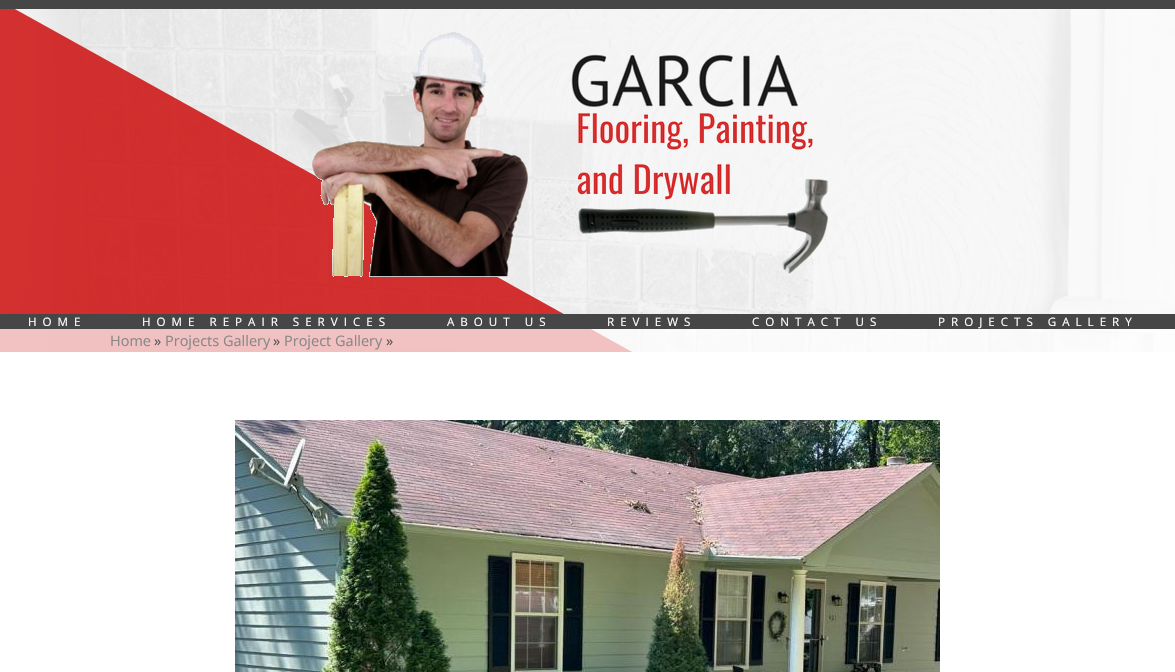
void draw(SkCanvas* c) {
SkPaint p;
p.setAntiAlias(true);
auto F=[&](const char* family, int weight, float size, bool italic = false){SkFontStyle style(weight, SkFontStyle::kNormal_Width,italic ? SkFontStyle::kItalic_Slant : SkFontStyle::kUpright_Slant);SkFont result(fontMgr->matchFamilyStyle(family, style), size);result.setSubpixel(true);return result;};
auto T=[&](const char* s, float x, float y, const SkFont& font){c->drawString(s, x, y, font, p);};
auto L=[&](const char* s, float x, float y, const SkFont& font, const SkPaint& ink, float letter, float word){std::vector<SkGlyphID> glyphs(font.countText(s, strlen(s), SkTextEncoding::kUTF8));std::vector<float> xs(glyphs.size());font.textToGlyphs(s, strlen(s), SkTextEncoding::kUTF8, glyphs);font.getXPos(glyphs, xs, x);float extra = 0;for (size_t i = 0; i < glyphs.size(); i++) {xs[i] += extra;extra += letter + word * (glyphs[i] == font.unicharToGlyph(' '));}c->drawTextBlob(SkTextBlob::MakeFromPosHGlyphs(glyphs, xs, y, font), 0, 0, ink);};
auto R=[&](float x, float y, float w, float h){c->drawRect(SkRect::MakeXYWH(x, y, w, h), p);};
auto I=[&](const char* path, float x, float y, float w, float h){auto image = SkImages::DeferredFromEncodedData(SkData::MakeFromFileName(path));c->drawImageRect(image, SkRect::MakeXYWH(x, y, w, h), SkSamplingOptions());};
c->clear(0xffffffff);
I("1.png",0,9,1175,343);
p.setColor(0xff464646);
R(0,0,1175,9);
I("2.png",311,32,517,245);
R(0,314,1175,15);
auto f1 = F("Open Sans",400,11.6);
p.setColor(0xffffffff);
L("HOME",28,326,f1,p,6,0);
L("HOME REPAIR SERVICES",142,326,f1,p,6,0);
L("ABOUT US",447,326,f1,p,6,0);
L("REVIEWS",607,326,f1,p,6,0);
L("CONTACT US",752,326,f1,p,6,0);
L("PROJECTS GALLERY",938,326,f1,p,6,0);
p.setColor(0xb3ffffff);
R(0,329,1175,23);
auto f2 = F("Open Sans",400,14.5);
p.setColor(0xff888888);
T("Home",110,346,f2);
p.setColor(0xff555555);
T("»",154,346,f2);
p.setColor(0xff888888);
T("Projects Gallery",165,346,f2);
p.setColor(0xff555555);
T("»",273,346,f2);
p.setColor(0xff888888);
T("Project Gallery",284,346,f2);
p.setColor(0xff555555);
T("»",386,346,f2);
I("3.png",235,420,705,252);
}
